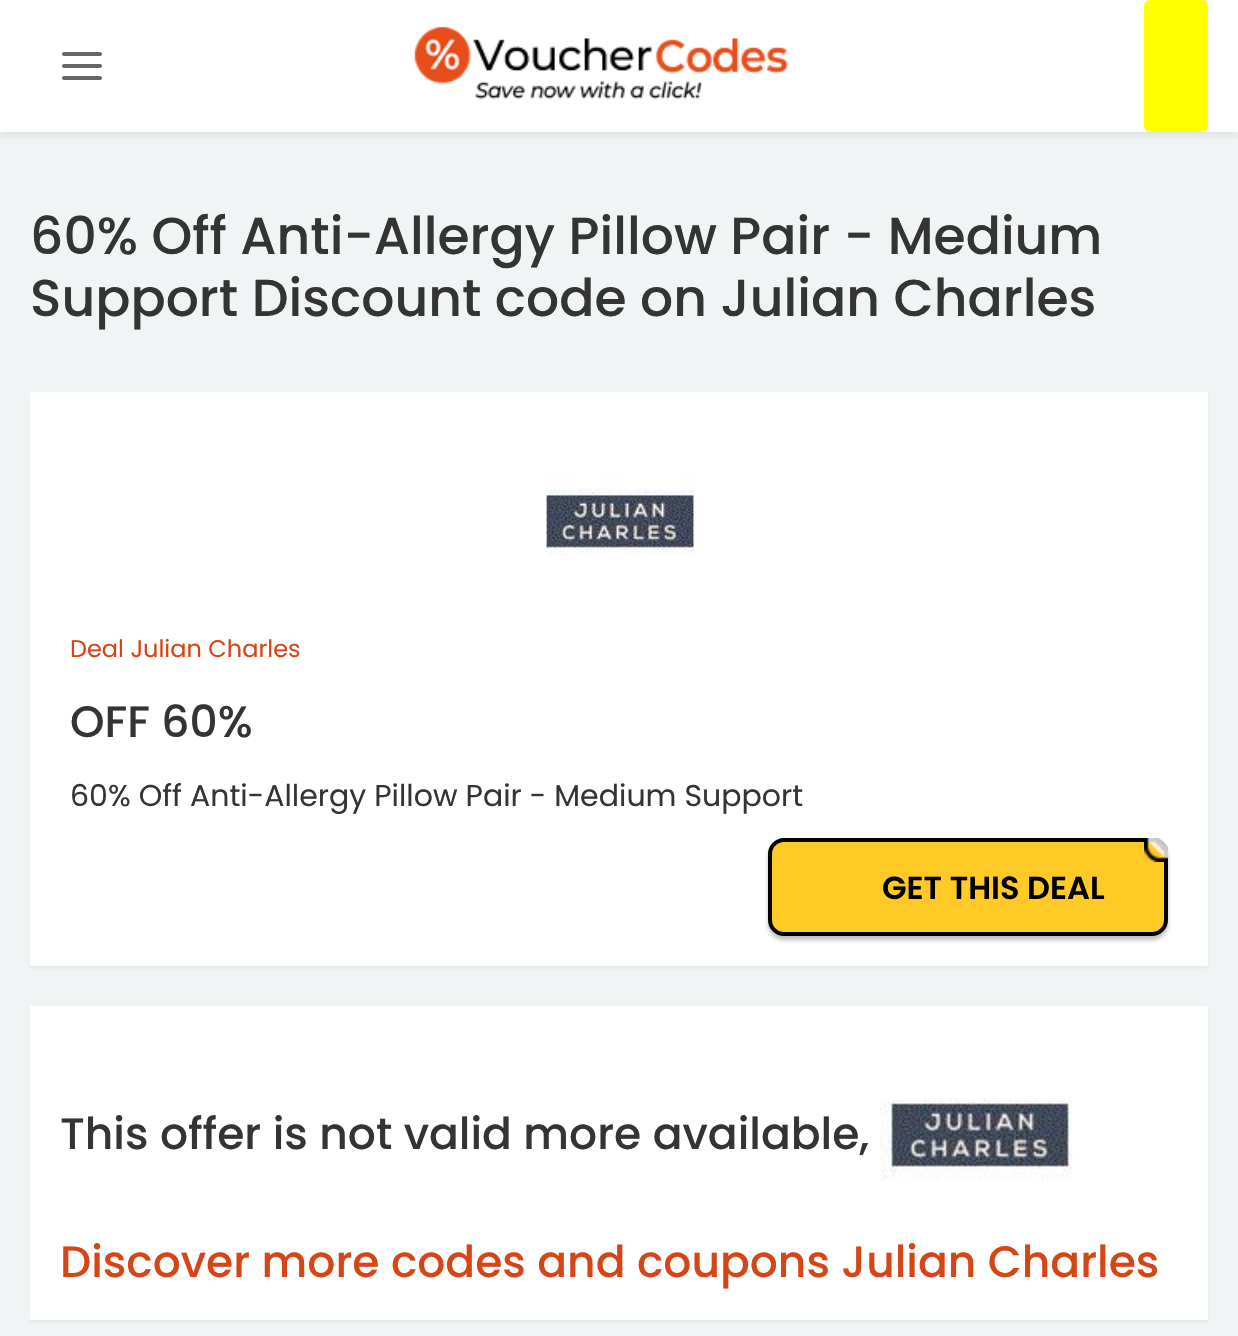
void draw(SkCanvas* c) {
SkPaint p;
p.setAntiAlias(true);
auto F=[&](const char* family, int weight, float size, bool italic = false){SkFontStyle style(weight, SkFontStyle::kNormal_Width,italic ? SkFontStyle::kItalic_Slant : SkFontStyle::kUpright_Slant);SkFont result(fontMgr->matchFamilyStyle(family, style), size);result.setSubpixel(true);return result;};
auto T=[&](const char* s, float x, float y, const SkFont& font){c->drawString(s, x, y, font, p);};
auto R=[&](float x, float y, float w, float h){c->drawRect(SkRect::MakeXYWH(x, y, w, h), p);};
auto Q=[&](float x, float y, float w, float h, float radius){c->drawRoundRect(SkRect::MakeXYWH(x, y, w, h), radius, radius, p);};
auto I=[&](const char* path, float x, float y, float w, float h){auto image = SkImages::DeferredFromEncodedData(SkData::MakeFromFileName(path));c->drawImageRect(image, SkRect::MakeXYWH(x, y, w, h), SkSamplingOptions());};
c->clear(0xffffffff);
p.setColor(0xfff1f4f5);
R(0,132,1238,1204);
c->save();
c->clipRect(SkRect::MakeXYWH(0,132,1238,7));
p.setColor(0x14000000);
p.setMaskFilter(SkMaskFilter::MakeBlur(kNormal_SkBlurStyle, 4));
c->drawRect(SkRect::MakeXYWH(0,4,1238,132),p);
p.setMaskFilter(nullptr);
c->restore();
p.setColor(0xff666666);
Q(62,52,40,4,2);
Q(62,64,40,4,2);
Q(62,76,40,4,2);
I("1.png",414,26,375,74);
p.setColor(0xffffff00);
Q(1144,0,64,132,6);
auto f1 = F("Poppins",500,52);
p.setColor(0xff343434);
T("60% Off Anti-Allergy Pillow Pair - Medium",30,254,f1);
T("Support Discount code on Julian Charles",30,316,f1);
p.setColor(0x0d000000);
p.setMaskFilter(SkMaskFilter::MakeBlur(kNormal_SkBlurStyle, 1));
c->drawRect(SkRect::MakeXYWH(30,394,1178,574),p);
p.setMaskFilter(nullptr);
p.setColor(0xffffffff);
R(30,392,1178,574);
I("2.png",546,476,156,80);
auto f2 = F("Poppins",400,24);
p.setColor(0xffd54515);
T("Deal Julian Charles",70,657,f2);
auto f3 = F("Poppins",500,44);
p.setColor(0xff343434);
T("OFF 60%",70,737,f3);
auto f4 = F("Poppins",400,30);
T("60% Off Anti-Allergy Pillow Pair - Medium Support",70,806,f4);
p.setColor(0x40000000);
p.setMaskFilter(SkMaskFilter::MakeBlur(kNormal_SkBlurStyle, 2));
c->drawRoundRect(SkRect::MakeXYWH(768,842,400,98),16,16,p);
p.setMaskFilter(nullptr);
p.setColor(0xffffc926);
c->drawRoundRect(SkRect::MakeXYWH(770,840,396,94),14,14,p);
p.setStroke(true);
p.setStrokeWidth(4);
p.setColor(0xff000000);
c->drawRoundRect(SkRect::MakeXYWH(770,840,396,94),14,14,p);
I("3.png",1144,838,24,24);
auto f5 = F("Poppins",600,32);
p.setStroke(false);
T("GET THIS DEAL",882,899,f5);
p.setColor(0x0d000000);
p.setMaskFilter(SkMaskFilter::MakeBlur(kNormal_SkBlurStyle, 1));
c->drawRect(SkRect::MakeXYWH(30,1008,1178,314),p);
p.setMaskFilter(nullptr);
p.setColor(0xffffffff);
R(30,1006,1178,314);
p.setColor(0xff343434);
T("This offer is not valid more available,",60,1149,f3);
I("4.png",880,1099,193,82);
p.setColor(0xffd54515);
T("Discover more codes and coupons Julian Charles",60,1277,f3);
}
